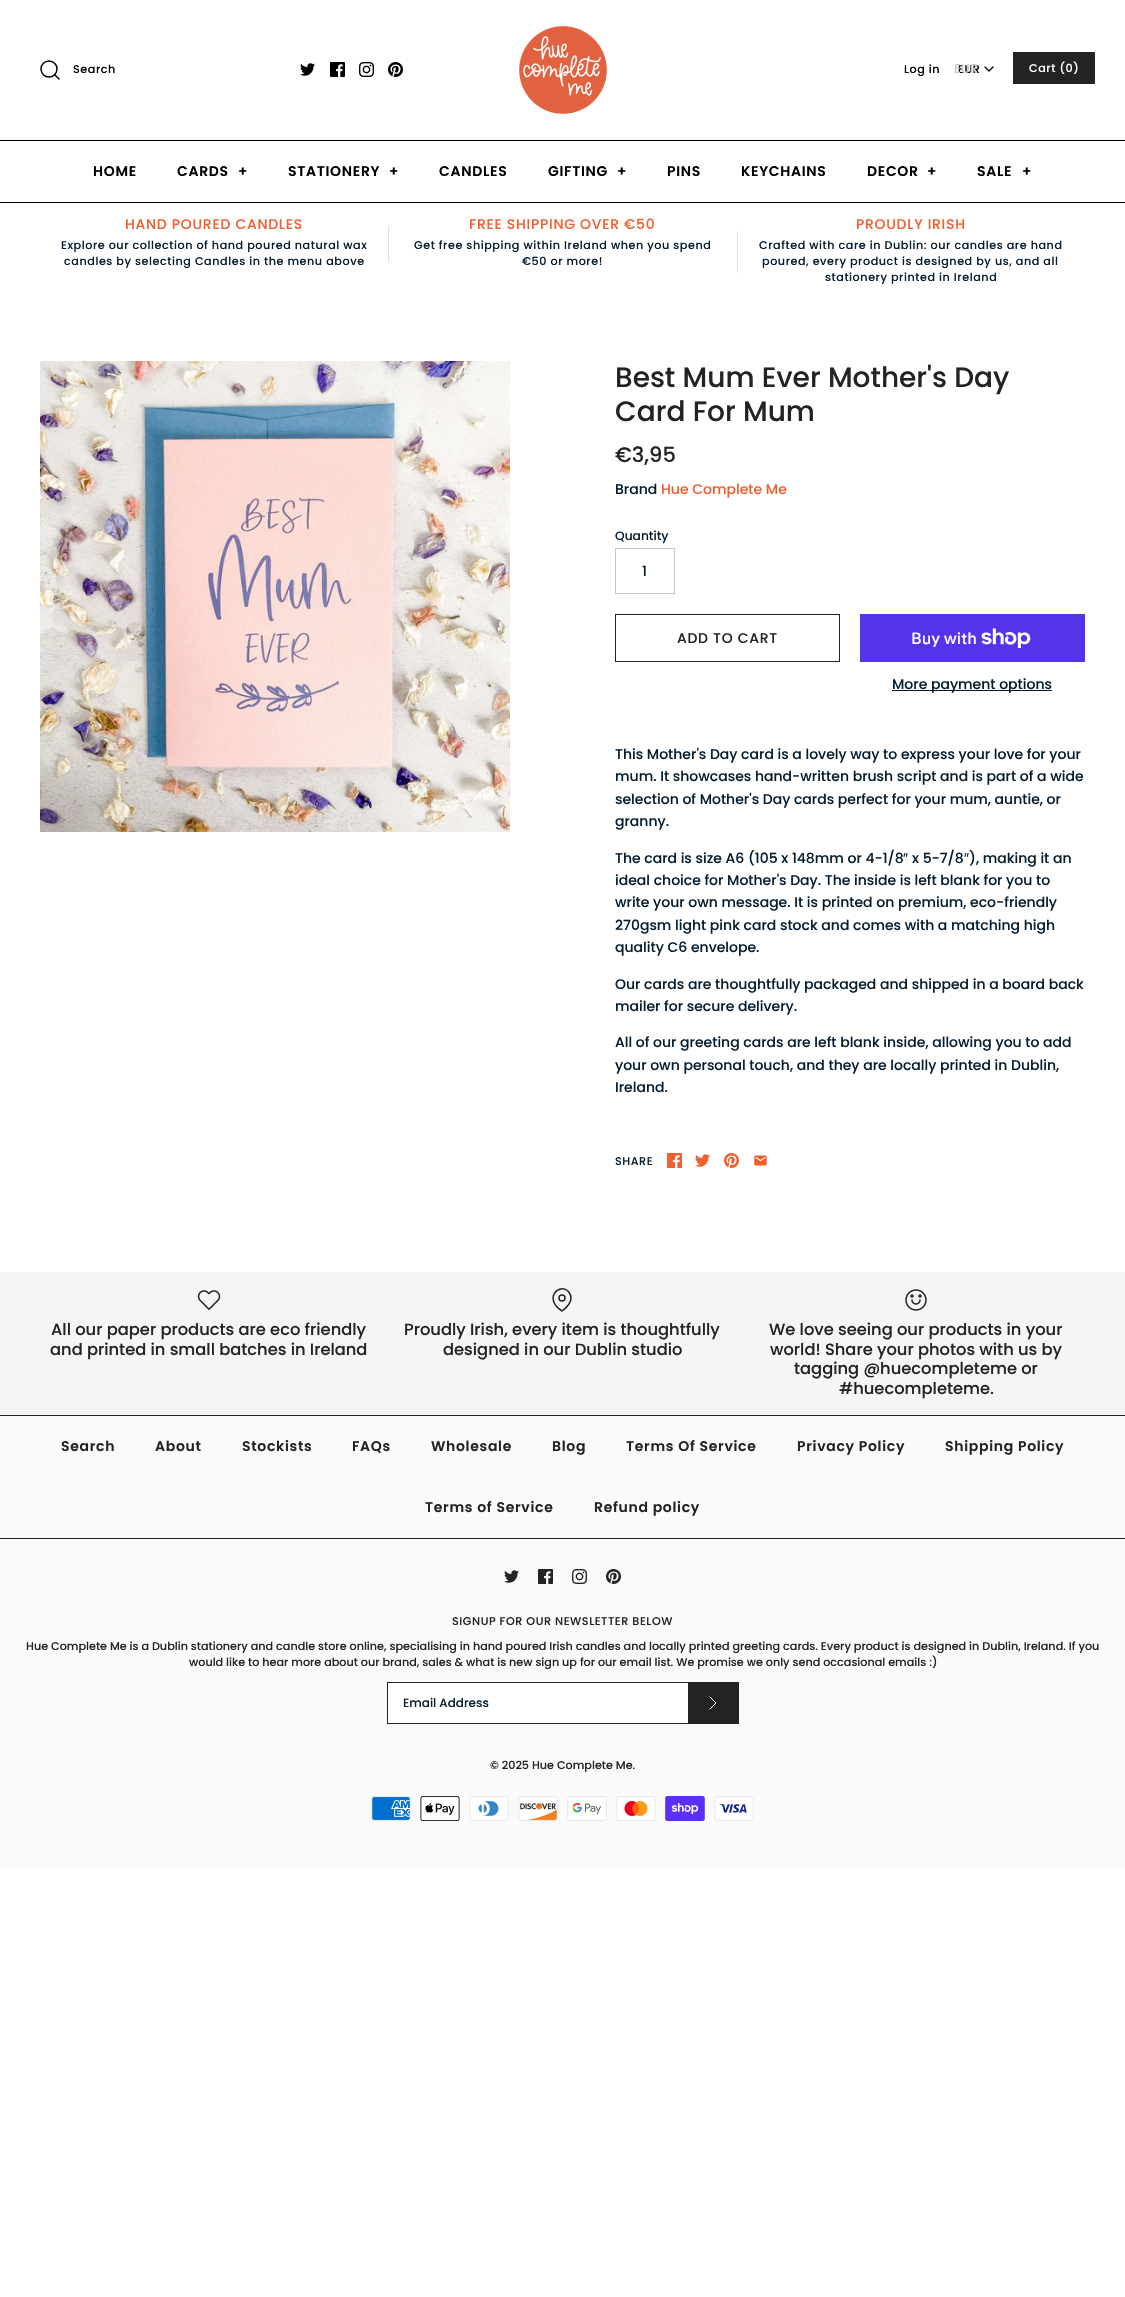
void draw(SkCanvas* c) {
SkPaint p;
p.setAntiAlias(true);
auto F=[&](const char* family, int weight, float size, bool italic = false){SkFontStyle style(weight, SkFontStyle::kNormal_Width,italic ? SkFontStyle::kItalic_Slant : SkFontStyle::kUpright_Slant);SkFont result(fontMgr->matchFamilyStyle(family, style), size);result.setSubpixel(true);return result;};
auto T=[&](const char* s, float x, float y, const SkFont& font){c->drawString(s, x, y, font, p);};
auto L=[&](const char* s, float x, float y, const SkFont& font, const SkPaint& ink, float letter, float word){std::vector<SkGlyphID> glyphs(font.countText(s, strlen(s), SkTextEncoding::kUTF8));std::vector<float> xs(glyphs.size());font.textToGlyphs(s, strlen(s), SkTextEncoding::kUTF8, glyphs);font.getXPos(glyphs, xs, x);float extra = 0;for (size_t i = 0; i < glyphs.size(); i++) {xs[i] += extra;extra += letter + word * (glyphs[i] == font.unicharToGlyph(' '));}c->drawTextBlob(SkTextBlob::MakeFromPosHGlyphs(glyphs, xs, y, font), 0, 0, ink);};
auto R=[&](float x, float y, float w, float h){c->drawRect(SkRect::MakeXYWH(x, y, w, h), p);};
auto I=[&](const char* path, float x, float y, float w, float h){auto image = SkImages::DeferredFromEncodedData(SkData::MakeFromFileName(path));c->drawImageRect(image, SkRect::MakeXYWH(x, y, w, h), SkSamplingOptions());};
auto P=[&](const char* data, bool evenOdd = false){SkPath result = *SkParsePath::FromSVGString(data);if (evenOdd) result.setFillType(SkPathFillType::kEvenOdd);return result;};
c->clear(0xffffffff);
I("1.png",519,26,88,88);
p.setStroke(true);
p.setStrokeWidth(1.5);
p.setColor(0xff000000);
c->drawCircle(49,69,8,p);
p.setStrokeCap(SkPaint::kRound_Cap);
p.setStrokeJoin(SkPaint::kRound_Join);
c->drawPath(P("M59 79l-4.5-4.5"),p);
auto f1 = F("Poppins",500,11.2);
p.setStroke(false);
L("Search",73,73,f1,p,.55,0);
I("2.png",300,63,15,13);
I("3.png",330,62,15,15);
I("4.png",359,62,15,15);
I("5.png",388,62,15,15);
L("Log in",904,73,f1,p,.55,0);
L("EUR",958,73,f1,p,.55,0);
auto f2 = F("Poppins",500,13);
p.setColor(0xffcbcbcb);
T("EUR",954,73,f2);
p.setStroke(true);
p.setStrokeWidth(1.3);
p.setColor(0xff000000);
c->drawPath(P("M985 67l4 4l4-4"),p);
p.setStroke(false);
p.setColor(0xff232323);
R(1013,52,82,32);
p.setColor(0xffffffff);
L("Cart (0)",1029,72,f1,p,.55,0);
p.setColor(0xff000000);
R(0,202,1125,1);
R(0,140,1125,1);
auto f3 = F("Poppins",600,14);
L("HOME",93,176,f3,p,.7,0);
L("CARDS",177,176,f3,p,.7,0);
L("+",238,176,f3,p,.7,0);
L("STATIONERY",288,176,f3,p,.7,0);
L("+",389,176,f3,p,.7,0);
L("CANDLES",439,176,f3,p,.7,0);
L("GIFTING",548,176,f3,p,.7,0);
L("+",617,176,f3,p,.7,0);
L("PINS",667,176,f3,p,.7,0);
L("KEYCHAINS",741,176,f3,p,.7,0);
L("DECOR",867,176,f3,p,.7,0);
L("+",927,176,f3,p,.7,0);
L("SALE",977,176,f3,p,.7,0);
L("+",1022,176,f3,p,.7,0);
auto f4 = F("Poppins",500,14);
p.setColor(0xfff15f2f);
L("HAND POURED CANDLES",125,229,f4,p,.7,0);
p.setColor(0xff051d30);
L("Explore our collection of hand poured natural wax",61,249,f1,p,.55,0);
L("candles by selecting Candles in the menu above",64,265,f1,p,.55,0);
p.setColor(0xfff15f2f);
L("FREE SHIPPING OVER €50",469,229,f4,p,.7,0);
p.setColor(0xffe2e2e2);
R(388,226,1,36);
p.setColor(0xff051d30);
L("Get free shipping within Ireland when you spend",414,249,f1,p,.55,0);
L("€50 or more!",522,265,f1,p,.55,0);
p.setColor(0xfff15f2f);
L("PROUDLY IRISH",856,229,f4,p,.7,0);
p.setColor(0xffe2e2e2);
R(737,231,1,42);
p.setColor(0xff051d30);
L("Crafted with care in Dublin: our candles are hand",759,249,f1,p,.55,0);
L("poured, every product is designed by us, and all",762,265,f1,p,.55,0);
L("stationery printed in Ireland",825,281,f1,p,.55,0);
I("6.png",40,361,470,471);
auto f5 = F("Poppins",500,28);
p.setColor(0xff232323);
T("Best Mum Ever Mother's Day",615,387,f5);
T("Card For Mum",615,421,f5);
auto f6 = F("Poppins",500,21);
T("€3,95",615,462,f6);
p.setColor(0xff051d30);
T("Brand",615,494,f4);
p.setColor(0xfff15f2f);
T("Hue Complete Me",661,494,f4);
auto f7 = F("Poppins",500,12.25);
p.setColor(0xff051d30);
T("Quantity",615,540,f7);
p.setStroke(true);
p.setStrokeWidth(1);
p.setStrokeCap(SkPaint::kButt_Cap);
p.setStrokeJoin(SkPaint::kMiter_Join);
p.setColor(0xffc0c6cb);
c->drawRect(SkRect::MakeXYWH(615.5,548.5,59,45),p);
p.setStroke(false);
p.setColor(0xff051d30);
T("1",642,576,f4);
p.setStroke(true);
p.setColor(0xff232323);
c->drawRect(SkRect::MakeXYWH(615.5,614.5,224,47),p);
p.setStroke(false);
L("ADD TO CART",677,643,f4,p,.7,0);
p.setColor(0xff5433eb);
R(860,614,225,48);
auto f8 = F("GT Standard",500,16);
p.setColor(0xffffffff);
T("Buy with",911,644,f8);
I("7.png",981,628,50,20);
p.setColor(0xff051d30);
R(892,690,160,1);
T("More payment options",892,689,f4);
T("This Mother's Day card is a lovely way to express your love for your",615,759,f4);
T("mum. It showcases hand-written brush script and is part of a wide",615,781,f4);
T("selection of Mother's Day cards perfect for your mum, auntie, or",615,804,f4);
T("granny.",615,826,f4);
T("The card is size A6 (105 x 148mm or 4-1/8",615,863,f4);
auto f9 = F("Liberation Sans",400,14);
T("″",903,863,f9);
T("x 5-7/8",912,863,f4);
T("″",964,863,f9);
T("), making it an",969,863,f4);
T("ideal choice for Mother's Day. The inside is left blank for you to",615,885,f4);
T("write your own message. It is printed on premium, eco-friendly",615,907,f4);
T("270gsm light pink card stock and comes with a matching high",615,930,f4);
T("quality C6 envelope.",615,952,f4);
T("Our cards are thoughtfully packaged and shipped in a board back",615,989,f4);
T("mailer for secure delivery.",615,1011,f4);
T("All of our greeting cards are left blank inside, allowing you to add",615,1047,f4);
T("your own personal touch, and they are locally printed in Dublin,",615,1070,f4);
T("Ireland.",615,1092,f4);
L("SHARE",615,1165,f1,p,.55,0);
I("8.png",667,1153,15,15);
I("9.png",695,1154,15,13);
I("10.png",724,1153,15,15);
I("11.png",754,1155,13,11);
p.setColor(0xfffafafa);
R(0,1416,1125,455);
p.setColor(0xfff5f5f5);
R(0,1272,1125,143);
I("12.png",197,1290,24,20);
auto f10 = F("Poppins",500,16.3);
p.setColor(0xff232323);
T("All our paper products are eco friendly",51,1335,f10);
T("and printed in small batches in Ireland",50,1355,f10);
p.setStroke(true);
p.setStrokeWidth(1.5);
p.setStrokeCap(SkPaint::kRound_Cap);
p.setStrokeJoin(SkPaint::kRound_Join);
c->drawPath(P("M571 1298c0 7-9 13-9 13c-19-12.5-3-28.5 6.5-19.5c1.5 2 2.5 4 2.5 6.5z"),p);
p.setStrokeCap(SkPaint::kButt_Cap);
p.setStrokeJoin(SkPaint::kMiter_Join);
c->drawCircle(562,1298,3,p);
p.setStroke(false);
T("Proudly Irish, every item is thoughtfully",404,1335,f10);
T("designed in our Dublin studio",443,1355,f10);
I("13.png",905,1289,22,22);
T("We love seeing our products in your",769,1335,f10);
T("world! Share your photos with us by",770,1355,f10);
T("tagging @huecompleteme or",794,1374,f10);
T("#huecompleteme.",839,1394,f10);
R(0,1415,1125,1);
R(0,1538,1125,1);
L("Search",61,1451,f3,p,.7,0);
L("About",155,1451,f3,p,.7,0);
L("Stockists",242,1451,f3,p,.7,0);
L("FAQs",352,1451,f3,p,.7,0);
L("Wholesale",431,1451,f3,p,.7,0);
L("Blog",552,1451,f3,p,.7,0);
L("Terms Of Service",626,1451,f3,p,.7,0);
L("Privacy Policy",797,1451,f3,p,.7,0);
L("Shipping Policy",945,1451,f3,p,.7,0);
L("Terms of Service",425,1512,f3,p,.7,0);
L("Refund policy",594,1512,f3,p,.7,0);
I("14.png",504,1570,15,13);
I("15.png",538,1569,15,15);
I("16.png",572,1569,15,15);
I("17.png",606,1569,15,15);
L("SIGNUP FOR OUR NEWSLETTER BELOW",452,1625,f1,p,.55,0);
T("Hue Complete Me is a Dublin stationery and candle store online, specialising in hand poured Irish candles and locally printed greeting cards. Every product is designed in Dublin, Ireland. If you",26,1650,f1);
T("would like to hear more about our brand, sales & what is new sign up for our email list. We promise we only send occasional emails :)",189,1666,f1);
p.setColor(0xffffffff);
R(388,1683,300,40);
p.setStroke(true);
p.setStrokeWidth(1);
p.setColor(0xff232323);
c->drawRect(SkRect::MakeXYWH(387.5,1682.5,351,41),p);
auto f11 = F("Poppins",500,12);
p.setStroke(false);
p.setColor(0xff051d30);
T("Email Address",403,1707,f11);
p.setColor(0xff232323);
R(688,1683,50,40);
p.setStroke(true);
p.setStrokeCap(SkPaint::kRound_Cap);
p.setStrokeJoin(SkPaint::kRound_Join);
p.setColor(0xffffffff);
c->drawPath(P("M710 1709l6-6l-6-6"),p);
p.setStroke(false);
p.setColor(0xff232323);
T("© 2025 Hue Complete Me.",490,1769,f1);
I("18.png",371,1796,40,25);
I("19.png",420,1796,40,25);
I("20.png",469,1796,40,25);
I("21.png",518,1796,40,25);
I("22.png",567,1796,40,25);
I("23.png",616,1796,40,25);
I("24.png",665,1796,40,25);
I("25.png",714,1796,40,25);
}
